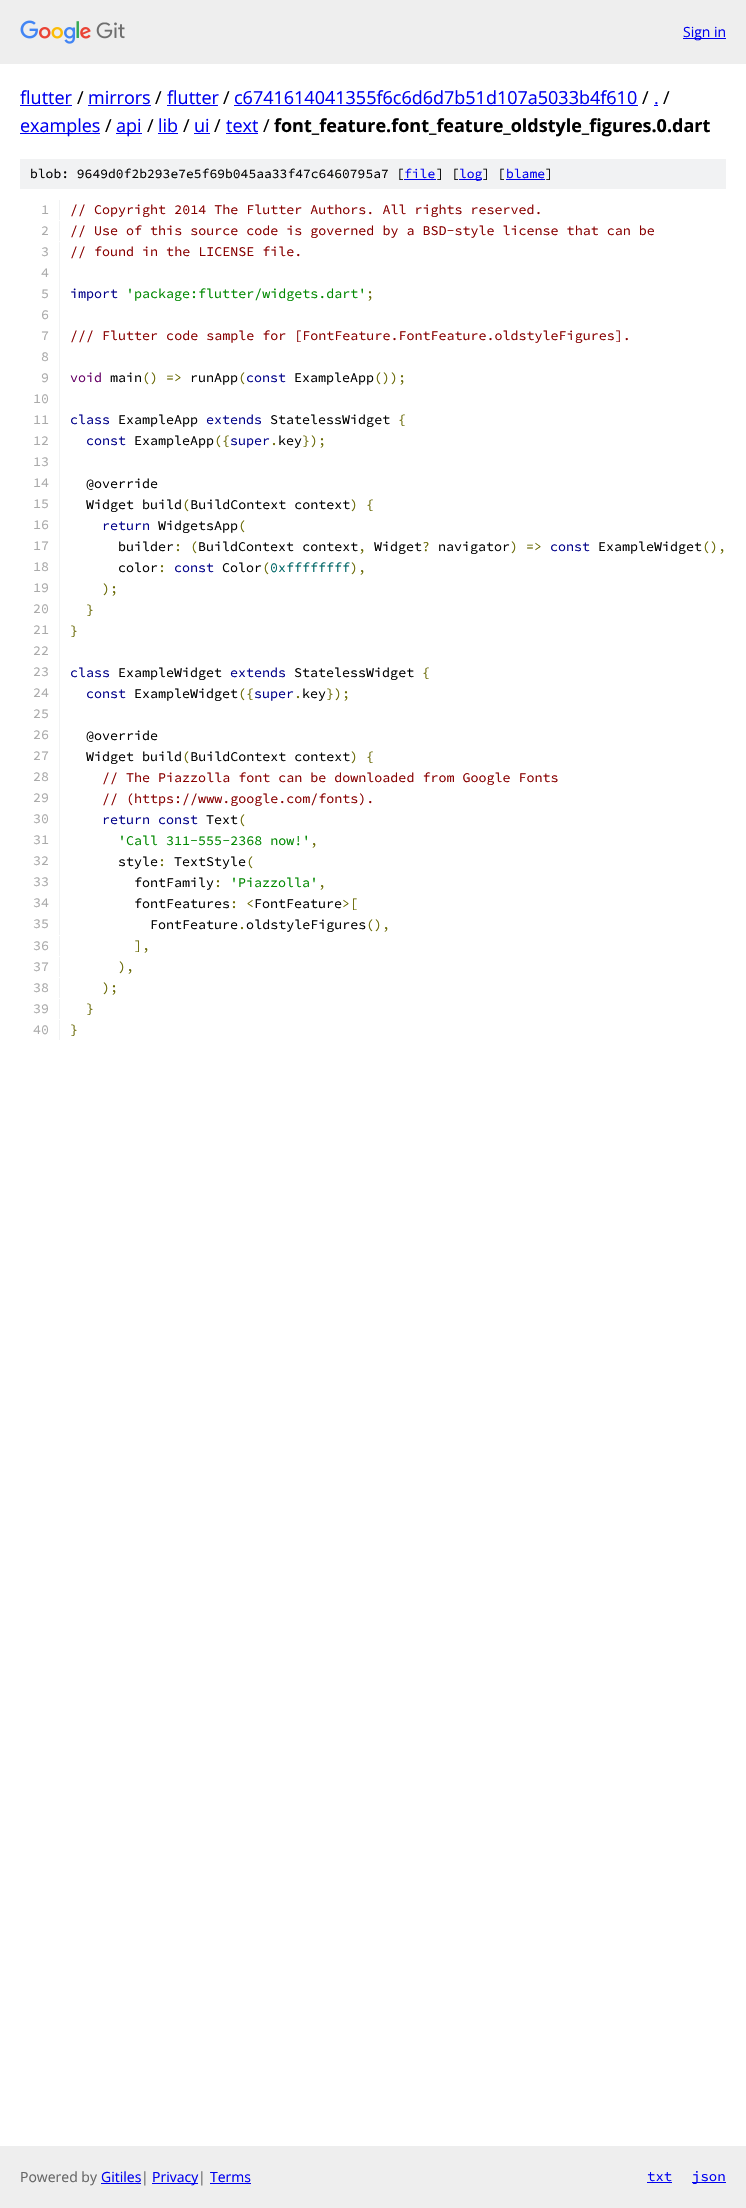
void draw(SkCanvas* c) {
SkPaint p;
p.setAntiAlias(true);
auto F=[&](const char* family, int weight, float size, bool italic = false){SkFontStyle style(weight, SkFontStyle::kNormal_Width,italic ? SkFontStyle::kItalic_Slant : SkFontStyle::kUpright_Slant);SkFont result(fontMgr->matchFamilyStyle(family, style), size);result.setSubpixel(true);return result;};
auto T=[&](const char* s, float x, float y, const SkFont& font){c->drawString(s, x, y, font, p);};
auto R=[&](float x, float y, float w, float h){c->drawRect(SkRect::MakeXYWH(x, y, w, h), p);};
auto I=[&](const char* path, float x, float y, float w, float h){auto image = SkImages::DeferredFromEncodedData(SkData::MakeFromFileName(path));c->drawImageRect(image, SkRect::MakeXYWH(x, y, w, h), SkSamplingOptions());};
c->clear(0xffffffff);
p.setColor(0xffeeeeee);
R(0,0,746,64);
I("1.png",20,20,105,24);
p.setColor(0xff0000ee);
R(683,38,43,1);
auto f1 = F("Open Sans",400,14);
T("Sign in",683,37,f1);
auto f2 = F("Open Sans",400,18);
T("flutter",20,104,f2);
R(20,105,52,1);
p.setColor(0xff000000);
T("/",77,104,f2);
p.setColor(0xff0000ee);
T("mirrors",88,104,f2);
R(88,105,63,1);
p.setColor(0xff000000);
T("/",155,104,f2);
p.setColor(0xff0000ee);
T("flutter",167,104,f2);
R(167,105,51,1);
p.setColor(0xff000000);
T("/",223,104,f2);
p.setColor(0xff0000ee);
T("c6741614041355f6c6d6d7b51d107a5033b4f610",234,104,f2);
R(234,105,404,1);
p.setColor(0xff000000);
T("/",642,104,f2);
p.setColor(0xff0000ee);
T(".",654,104,f2);
R(654,105,4,1);
p.setColor(0xff000000);
T("/",663,104,f2);
p.setColor(0xff0000ee);
R(20,133,80,1);
T("examples",20,132,f2);
p.setColor(0xff000000);
T("/",105,132,f2);
p.setColor(0xff0000ee);
R(116,133,26,1);
T("api",116,132,f2);
p.setColor(0xff000000);
T("/",147,132,f2);
p.setColor(0xff0000ee);
T("lib",158,132,f2);
R(158,133,20,1);
p.setColor(0xff000000);
T("/",183,132,f2);
p.setColor(0xff0000ee);
T("ui",194,132,f2);
R(194,133,16,1);
p.setColor(0xff000000);
T("/",214,132,f2);
p.setColor(0xff0000ee);
T("text",226,132,f2);
R(226,133,32,1);
p.setColor(0xff000000);
T("/",263,132,f2);
auto f3 = F("Open Sans",700,18);
T("font_feature.font_feature_oldstyle_figures.0.dart",274,132,f3);
p.setColor(0xfff1f2f3);
R(20,159,706,30);
auto f4 = F("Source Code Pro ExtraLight",200,13);
p.setColor(0xff000000);
T("blob: 9649d0f2b293e7e5f69b045aa33f47c6460795a7 [",30,178,f4);
p.setColor(0xff0000ee);
T("file",404,178,f4);
R(404,179,32,1);
p.setColor(0xff000000);
T("] [",436,178,f4);
p.setColor(0xff0000ee);
R(459,179,23,1);
T("log",459,178,f4);
p.setColor(0xff000000);
T("] [",482,178,f4);
p.setColor(0xff0000ee);
T("blame",506,178,f4);
R(506,179,39,1);
p.setColor(0xff000000);
T("]",545,178,f4);
p.setColor(0xfff1f2f3);
R(59,200,1,20);
auto f5 = F("Source Code Pro ExtraLight",200,13.35);
p.setColor(0xffaaaaaa);
T("1",41,214,f5);
p.setColor(0xff880000);
T("// Copyright 2014 The Flutter Authors. All rights reserved.",70,214,f5);
p.setColor(0xfff1f2f3);
R(59,221,1,20);
p.setColor(0xffaaaaaa);
T("2",41,235,f5);
p.setColor(0xff880000);
T("// Use of this source code is governed by a BSD-style license that can be",70,235,f5);
p.setColor(0xfff1f2f3);
R(59,242,1,693);
p.setColor(0xffaaaaaa);
T("3",41,256,f5);
p.setColor(0xff880000);
T("// found in the LICENSE file.",70,256,f5);
p.setColor(0xffaaaaaa);
T("4",41,277,f5);
T("5",41,298,f5);
p.setColor(0xff000088);
T("import",70,298,f5);
p.setColor(0xff008800);
T("'package:flutter/widgets.dart'",126,298,f5);
p.setColor(0xff666600);
T(";",366,298,f5);
p.setColor(0xffaaaaaa);
T("6",41,319,f5);
T("7",41,340,f5);
p.setColor(0xff880000);
T("/// Flutter code sample for [FontFeature.FontFeature.oldstyleFigures].",70,340,f5);
p.setColor(0xffaaaaaa);
T("8",41,361,f5);
T("9",41,382,f5);
p.setColor(0xff660066);
T("void",70,382,f5);
p.setColor(0xff000000);
T("main",110,382,f5);
p.setColor(0xff666600);
T("() =>",142,382,f5);
p.setColor(0xff000000);
T("runApp",190,382,f5);
p.setColor(0xff666600);
T("(",238,382,f5);
p.setColor(0xff000088);
T("const",246,382,f5);
p.setColor(0xff000000);
T("ExampleApp",294,382,f5);
p.setColor(0xff666600);
T("());",374,382,f5);
p.setColor(0xffaaaaaa);
T("10",33,403,f5);
T("11",33,424,f5);
p.setColor(0xff000088);
T("class",70,424,f5);
p.setColor(0xff000000);
T("ExampleApp",118,424,f5);
p.setColor(0xff000088);
T("extends",206,424,f5);
p.setColor(0xff000000);
T("StatelessWidget",270,424,f5);
p.setColor(0xff666600);
T("{",398,424,f5);
p.setColor(0xffaaaaaa);
T("12",33,445,f5);
p.setColor(0xff000088);
T("const",86,445,f5);
p.setColor(0xff000000);
T("ExampleApp",134,445,f5);
p.setColor(0xff666600);
T("({",214,445,f5);
p.setColor(0xff000088);
T("super",230,445,f5);
p.setColor(0xff666600);
T(".",270,445,f5);
p.setColor(0xff000000);
T("key",278,445,f5);
p.setColor(0xff666600);
T("});",302,445,f5);
p.setColor(0xffaaaaaa);
T("13",33,466,f5);
T("14",33,487,f5);
p.setColor(0xff000000);
T("@override",86,488,f5);
p.setColor(0xffaaaaaa);
T("15",33,508,f5);
p.setColor(0xff000000);
T("Widget build BuildContext context",86,509,f5);
p.setColor(0xff666600);
T("(",182,509,f5);
T(") {",350,509,f5);
p.setColor(0xffaaaaaa);
T("16",33,529,f5);
p.setColor(0xff000088);
T("return",102,530,f5);
p.setColor(0xff000000);
T("WidgetsApp",158,530,f5);
p.setColor(0xff666600);
T("(",238,530,f5);
p.setColor(0xffaaaaaa);
T("17",33,550,f5);
p.setColor(0xff000000);
T("builder",118,551,f5);
p.setColor(0xff666600);
T(": (",174,551,f5);
p.setColor(0xff000000);
T("BuildContext context",198,551,f5);
p.setColor(0xff666600);
T(",",358,551,f5);
p.setColor(0xff000000);
T("Widget",374,551,f5);
p.setColor(0xff666600);
T("?",422,551,f5);
p.setColor(0xff000000);
T("navigator",438,551,f5);
p.setColor(0xff666600);
T(") =>",510,551,f5);
p.setColor(0xff000088);
T("const",550,551,f5);
p.setColor(0xff000000);
T("ExampleWidget",598,551,f5);
p.setColor(0xff666600);
T("(),",702,551,f5);
p.setColor(0xffaaaaaa);
T("18",33,571,f5);
p.setColor(0xff000000);
T("color",118,572,f5);
p.setColor(0xff666600);
T(":",158,572,f5);
p.setColor(0xff000088);
T("const",174,572,f5);
p.setColor(0xff000000);
T("Color",222,572,f5);
p.setColor(0xff666600);
T("(",262,572,f5);
p.setColor(0xff006666);
T("0xffffffff",270,572,f5);
p.setColor(0xff666600);
T("),",350,572,f5);
p.setColor(0xffaaaaaa);
T("19",33,592,f5);
p.setColor(0xff666600);
T(");",102,593,f5);
p.setColor(0xffaaaaaa);
T("20",33,613,f5);
p.setColor(0xff666600);
T("}",86,614,f5);
p.setColor(0xffaaaaaa);
T("21",33,634,f5);
p.setColor(0xff666600);
T("}",70,635,f5);
p.setColor(0xffaaaaaa);
T("22",33,655,f5);
T("23",33,676,f5);
p.setColor(0xff000088);
T("class",70,677,f5);
p.setColor(0xff000000);
T("ExampleWidget",118,677,f5);
p.setColor(0xff000088);
T("extends",230,677,f5);
p.setColor(0xff000000);
T("StatelessWidget",294,677,f5);
p.setColor(0xff666600);
T("{",422,677,f5);
p.setColor(0xffaaaaaa);
T("24",33,697,f5);
p.setColor(0xff000088);
T("const",86,698,f5);
p.setColor(0xff000000);
T("ExampleWidget",134,698,f5);
p.setColor(0xff666600);
T("({",238,698,f5);
p.setColor(0xff000088);
T("super",254,698,f5);
p.setColor(0xff666600);
T(".",294,698,f5);
p.setColor(0xff000000);
T("key",302,698,f5);
p.setColor(0xff666600);
T("});",326,698,f5);
p.setColor(0xffaaaaaa);
T("25",33,718,f5);
T("26",33,739,f5);
p.setColor(0xff000000);
T("@override",86,740,f5);
p.setColor(0xffaaaaaa);
T("27",33,760,f5);
p.setColor(0xff000000);
T("Widget build BuildContext context",86,761,f5);
p.setColor(0xff666600);
T("(",182,761,f5);
T(") {",350,761,f5);
p.setColor(0xffaaaaaa);
T("28",33,781,f5);
p.setColor(0xff880000);
T("// The Piazzolla font can be downloaded from Google Fonts",102,782,f5);
p.setColor(0xffaaaaaa);
T("29",33,802,f5);
p.setColor(0xff880000);
T("// (https://www.google.com/fonts).",102,803,f5);
p.setColor(0xffaaaaaa);
T("30",33,823,f5);
p.setColor(0xff000088);
T("return const",102,824,f5);
p.setColor(0xff000000);
T("Text",206,824,f5);
p.setColor(0xff666600);
T("(",238,824,f5);
p.setColor(0xffaaaaaa);
T("31",33,844,f5);
p.setColor(0xff008800);
T("'Call 311-555-2368 now!'",118,845,f5);
p.setColor(0xff666600);
T(",",310,845,f5);
p.setColor(0xffaaaaaa);
T("32",33,865,f5);
p.setColor(0xff000000);
T("style",118,866,f5);
p.setColor(0xff666600);
T(":",158,866,f5);
p.setColor(0xff000000);
T("TextStyle",174,866,f5);
p.setColor(0xff666600);
T("(",246,866,f5);
p.setColor(0xffaaaaaa);
T("33",33,886,f5);
p.setColor(0xff000000);
T("fontFamily",134,887,f5);
p.setColor(0xff666600);
T(":",214,887,f5);
p.setColor(0xff008800);
T("'Piazzolla'",230,887,f5);
p.setColor(0xff666600);
T(",",318,887,f5);
p.setColor(0xffaaaaaa);
T("34",33,907,f5);
p.setColor(0xff000000);
T("fontFeatures",134,908,f5);
p.setColor(0xff666600);
T(": <",230,908,f5);
p.setColor(0xff000000);
T("FontFeature",254,908,f5);
p.setColor(0xff666600);
T(">[",342,908,f5);
p.setColor(0xffaaaaaa);
T("35",33,928,f5);
p.setColor(0xff000000);
T("FontFeature oldstyleFigures",150,929,f5);
p.setColor(0xff666600);
T("(),",366,929,f5);
T(".",238,929,f5);
p.setColor(0xfff1f2f3);
R(59,936,1,20);
p.setColor(0xffaaaaaa);
T("36",33,950,f5);
p.setColor(0xff666600);
T("],",134,950,f5);
p.setColor(0xfff1f2f3);
R(59,957,1,20);
p.setColor(0xffaaaaaa);
T("37",33,971,f5);
p.setColor(0xff666600);
T("),",118,971,f5);
p.setColor(0xfff1f2f3);
R(59,978,1,20);
p.setColor(0xffaaaaaa);
T("38",33,992,f5);
p.setColor(0xff666600);
T(");",102,992,f5);
p.setColor(0xfff1f2f3);
R(59,999,1,20);
p.setColor(0xffaaaaaa);
T("39",33,1013,f5);
p.setColor(0xff666600);
T("}",86,1013,f5);
p.setColor(0xfff1f2f3);
R(59,1020,1,20);
p.setColor(0xffaaaaaa);
T("40",33,1034,f5);
p.setColor(0xff666600);
T("}",70,1034,f5);
p.setColor(0xffeeeeee);
R(0,2146,746,62);
p.setColor(0xff666666);
T("Powered by",20,2182,f1);
p.setColor(0xff0000ee);
T("Gitiles",101,2182,f1);
R(101,2183,40,1);
p.setColor(0xff666666);
T("|",141,2182,f1);
p.setColor(0xff0000ee);
R(152,2183,46,1);
T("Privacy",152,2182,f1);
p.setColor(0xff666666);
T("|",198,2182,f1);
p.setColor(0xff0000ee);
T("Terms",210,2182,f1);
R(210,2183,41,1);
auto f6 = F("Source Code Pro ExtraLight",200,14);
T("txt",647,2181,f6);
R(647,2182,25,1);
R(692,2182,34,1);
T("json",692,2181,f6);
}
